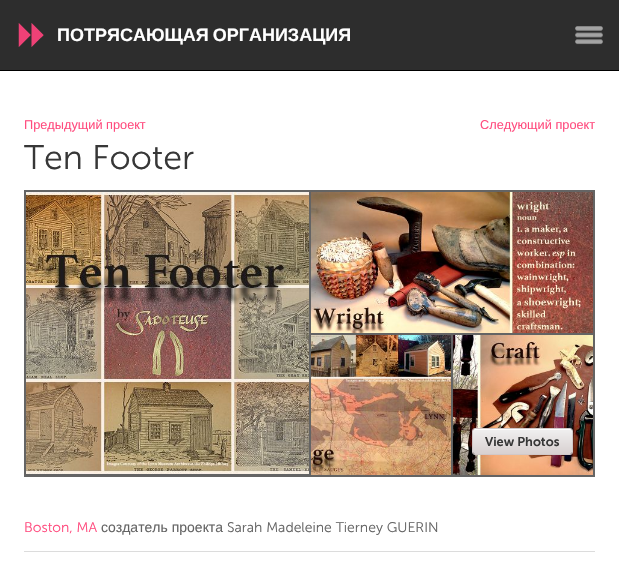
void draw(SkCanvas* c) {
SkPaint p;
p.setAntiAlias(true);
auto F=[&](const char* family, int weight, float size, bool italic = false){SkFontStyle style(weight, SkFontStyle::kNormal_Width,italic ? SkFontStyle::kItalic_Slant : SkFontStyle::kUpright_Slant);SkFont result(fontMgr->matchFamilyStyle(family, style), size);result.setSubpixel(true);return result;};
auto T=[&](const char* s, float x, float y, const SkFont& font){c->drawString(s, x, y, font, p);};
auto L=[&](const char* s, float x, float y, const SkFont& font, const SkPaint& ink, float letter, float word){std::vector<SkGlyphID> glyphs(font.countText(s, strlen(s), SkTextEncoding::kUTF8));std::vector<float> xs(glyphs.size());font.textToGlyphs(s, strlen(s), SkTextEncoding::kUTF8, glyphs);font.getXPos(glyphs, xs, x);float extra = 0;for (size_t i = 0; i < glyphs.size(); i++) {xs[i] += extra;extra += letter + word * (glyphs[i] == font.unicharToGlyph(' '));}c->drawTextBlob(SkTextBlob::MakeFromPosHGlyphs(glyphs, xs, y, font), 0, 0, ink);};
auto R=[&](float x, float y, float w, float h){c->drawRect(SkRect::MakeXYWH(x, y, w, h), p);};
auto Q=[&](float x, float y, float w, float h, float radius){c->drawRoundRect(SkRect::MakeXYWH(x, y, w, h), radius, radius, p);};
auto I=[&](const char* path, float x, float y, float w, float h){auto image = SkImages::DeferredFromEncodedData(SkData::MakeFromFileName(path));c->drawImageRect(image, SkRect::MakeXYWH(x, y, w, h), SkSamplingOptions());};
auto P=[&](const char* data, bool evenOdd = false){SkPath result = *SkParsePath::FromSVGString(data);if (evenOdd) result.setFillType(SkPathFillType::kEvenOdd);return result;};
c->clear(0xffffffff);
p.setColor(0xff2d2d2d);
R(0,0,619,70);
p.setColor(0xff000000);
R(0,70,619,1);
I("1.png",18,23,26,24);
auto f1 = F("Liberation Sans",700,18);
p.setColor(0xffffffff);
L("ПОТРЯСАЮЩАЯ ОРГАНИЗАЦИЯ",57,41,f1,p,0,-1);
I("2.png",575,26,28,19);
auto f2 = F("Liberation Sans",400,12.75);
p.setColor(0xffff4b7e);
T("Предыдущий проект",24,129,f2);
T("Следующий проект",480,129,f2);
auto f3 = F("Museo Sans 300",300,34);
p.setColor(0xff373737);
T("Ten Footer",24,169,f3);
p.setColor(0xff646464);
R(24,190,571,287);
I("3.png",26,192,283,282);
I("4.png",311,192,282,141);
I("5.png",311,335,140,140);
I("6.png",453,335,140,140);
{
const SkColor colors[] = {0xfff0f0f0,0xffd8d0d0};
const float stops[] = {0,1};
const SkPoint ends[] = {{523,429}, {523,454}};
p.setShader(SkGradientShader::MakeLinear(ends, colors, stops, 2, SkTileMode::kClamp));
p.setAlpha(255);
}
Q(473,429,99,25,2);
p.setShader(nullptr);
p.setColor(0xffffffff);
c->drawPath(P("M475 430h95c1 0 2 1 2 2c0-1 0-3-2-3h-79c-2 0-18-4-18 3c0-1 1-2 2-2z"),p);
p.setStroke(true);
p.setStrokeWidth(1);
p.setColor(0xffd1c8c8);
c->drawRoundRect(SkRect::MakeXYWH(472.5,428.5,100,26),2.5,2.5,p);
auto f4 = F("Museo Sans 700",600,12.75);
p.setStroke(false);
p.setColor(0xff373737);
T("View Photos",485,446,f4);
p.setColor(0xffdcdcdc);
R(24,551,571,1);
auto f5 = F("Museo Sans 300",300,14);
p.setColor(0xffff4b7e);
T("Boston, MA",24,532,f5);
auto f6 = F("Liberation Sans",400,14);
p.setColor(0xff646464);
T("создатель проекта",101,532,f6);
T("Sarah Madeleine Tierney GUERIN",227,532,f5);
}
